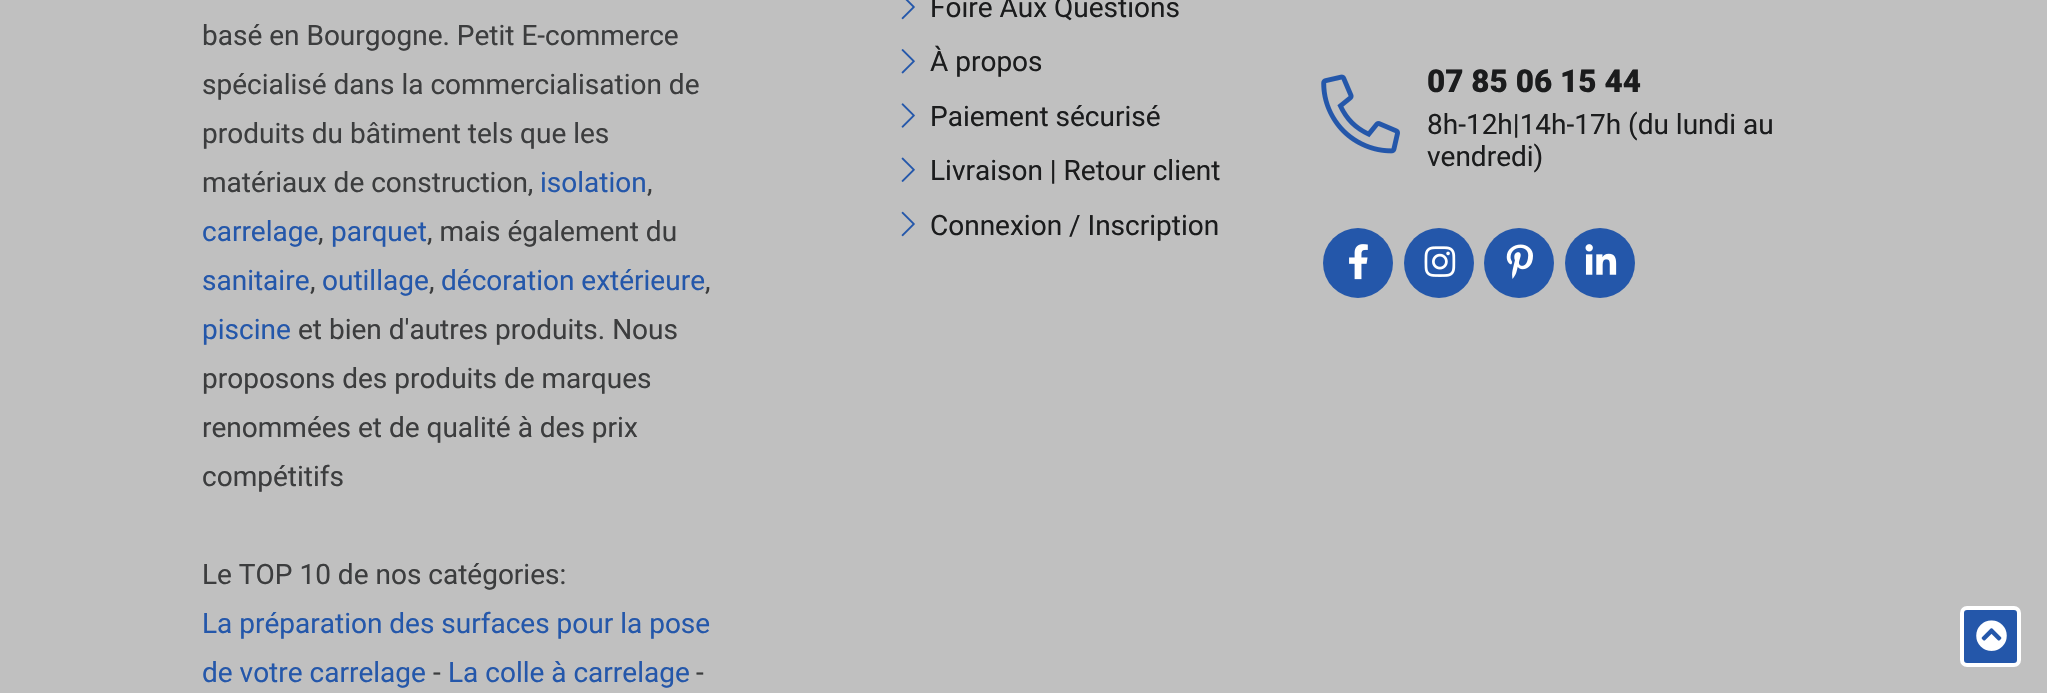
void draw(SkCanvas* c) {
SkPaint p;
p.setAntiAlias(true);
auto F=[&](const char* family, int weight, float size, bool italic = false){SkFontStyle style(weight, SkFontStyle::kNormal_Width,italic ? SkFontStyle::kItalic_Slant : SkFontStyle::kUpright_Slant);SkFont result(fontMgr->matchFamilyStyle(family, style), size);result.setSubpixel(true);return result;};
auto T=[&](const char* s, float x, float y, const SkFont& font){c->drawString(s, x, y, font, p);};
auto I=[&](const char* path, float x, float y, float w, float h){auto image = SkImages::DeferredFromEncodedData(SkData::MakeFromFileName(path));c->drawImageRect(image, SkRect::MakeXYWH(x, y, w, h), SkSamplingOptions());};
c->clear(0xffc0c0c0);
auto f1 = F("Roboto",400,28);
p.setColor(0xff3c3d3e);
T("basé en Bourgogne. Petit E-commerce",202,45,f1);
T("spécialisé dans la commercialisation de",202,94,f1);
T("produits du bâtiment tels que les",202,143,f1);
T("matériaux de construction,",202,192,f1);
p.setColor(0xff2457aa);
T("isolation",540,192,f1);
p.setColor(0xff3c3d3e);
T(",",647,192,f1);
p.setColor(0xff2457aa);
T("carrelage",202,241,f1);
p.setColor(0xff3c3d3e);
T(",",318,241,f1);
p.setColor(0xff2457aa);
T("parquet",331,241,f1);
p.setColor(0xff3c3d3e);
T(", mais également du",427,241,f1);
p.setColor(0xff2457aa);
T("sanitaire",202,290,f1);
p.setColor(0xff3c3d3e);
T(",",310,290,f1);
p.setColor(0xff2457aa);
T("outillage",322,290,f1);
p.setColor(0xff3c3d3e);
T(",",429,290,f1);
p.setColor(0xff2457aa);
T("décoration extérieure",441,290,f1);
p.setColor(0xff3c3d3e);
T(",",705,290,f1);
p.setColor(0xff2457aa);
T("piscine",202,339,f1);
p.setColor(0xff3c3d3e);
T("et bien d'autres produits. Nous",298,339,f1);
T("proposons des produits de marques",202,388,f1);
T("renommées et de qualité à des prix",202,437,f1);
T("compétitifs",202,486,f1);
T("Le TOP 10 de nos catégories:",202,584,f1);
p.setColor(0xff2457aa);
T("La préparation des surfaces pour la pose",202,633,f1);
T("de votre carrelage",202,682,f1);
p.setColor(0xff3c3d3e);
T("-",433,682,f1);
p.setColor(0xff2457aa);
T("La colle à carrelage",448,682,f1);
p.setColor(0xff3c3d3e);
T("-",696,682,f1);
I("1.png",901,0,14,20);
p.setColor(0xff1b1c1d);
T("Foire Aux Questions",930,17,f1);
I("2.png",901,49,14,25);
T("À propos",930,71,f1);
I("3.png",901,103,14,25);
T("Paiement sécurisé",930,126,f1);
I("4.png",901,157,14,25);
T("Livraison | Retour client",930,180,f1);
I("5.png",901,211,14,26);
T("Connexion / Inscription",930,235,f1);
I("6.png",1321,74,79,80);
auto f2 = F("Roboto",900,31.5);
T("07 85 06 15 44",1427,92,f2);
T("8h-12h|14h-17h (du lundi au",1427,134,f1);
T("vendredi)",1427,166,f1);
p.setColor(0xff2457aa);
c->drawCircle(1358,263,35,p);
I("7.png",1349,244,19,36);
c->drawCircle(1439,263,35,p);
I("8.png",1424,246,32,31);
c->drawCircle(1519,263,35,p);
I("9.png",1506,244,27,35);
c->drawCircle(1600,263,35,p);
I("10.png",1585,244,32,31);
c->drawRoundRect(SkRect::MakeXYWH(1962,608,57,57),5,5,p);
p.setStroke(true);
p.setStrokeWidth(4);
p.setColor(0xffffffff);
c->drawRoundRect(SkRect::MakeXYWH(1962,608,57,57),5,5,p);
I("11.png",1976,620,31,31);
}
